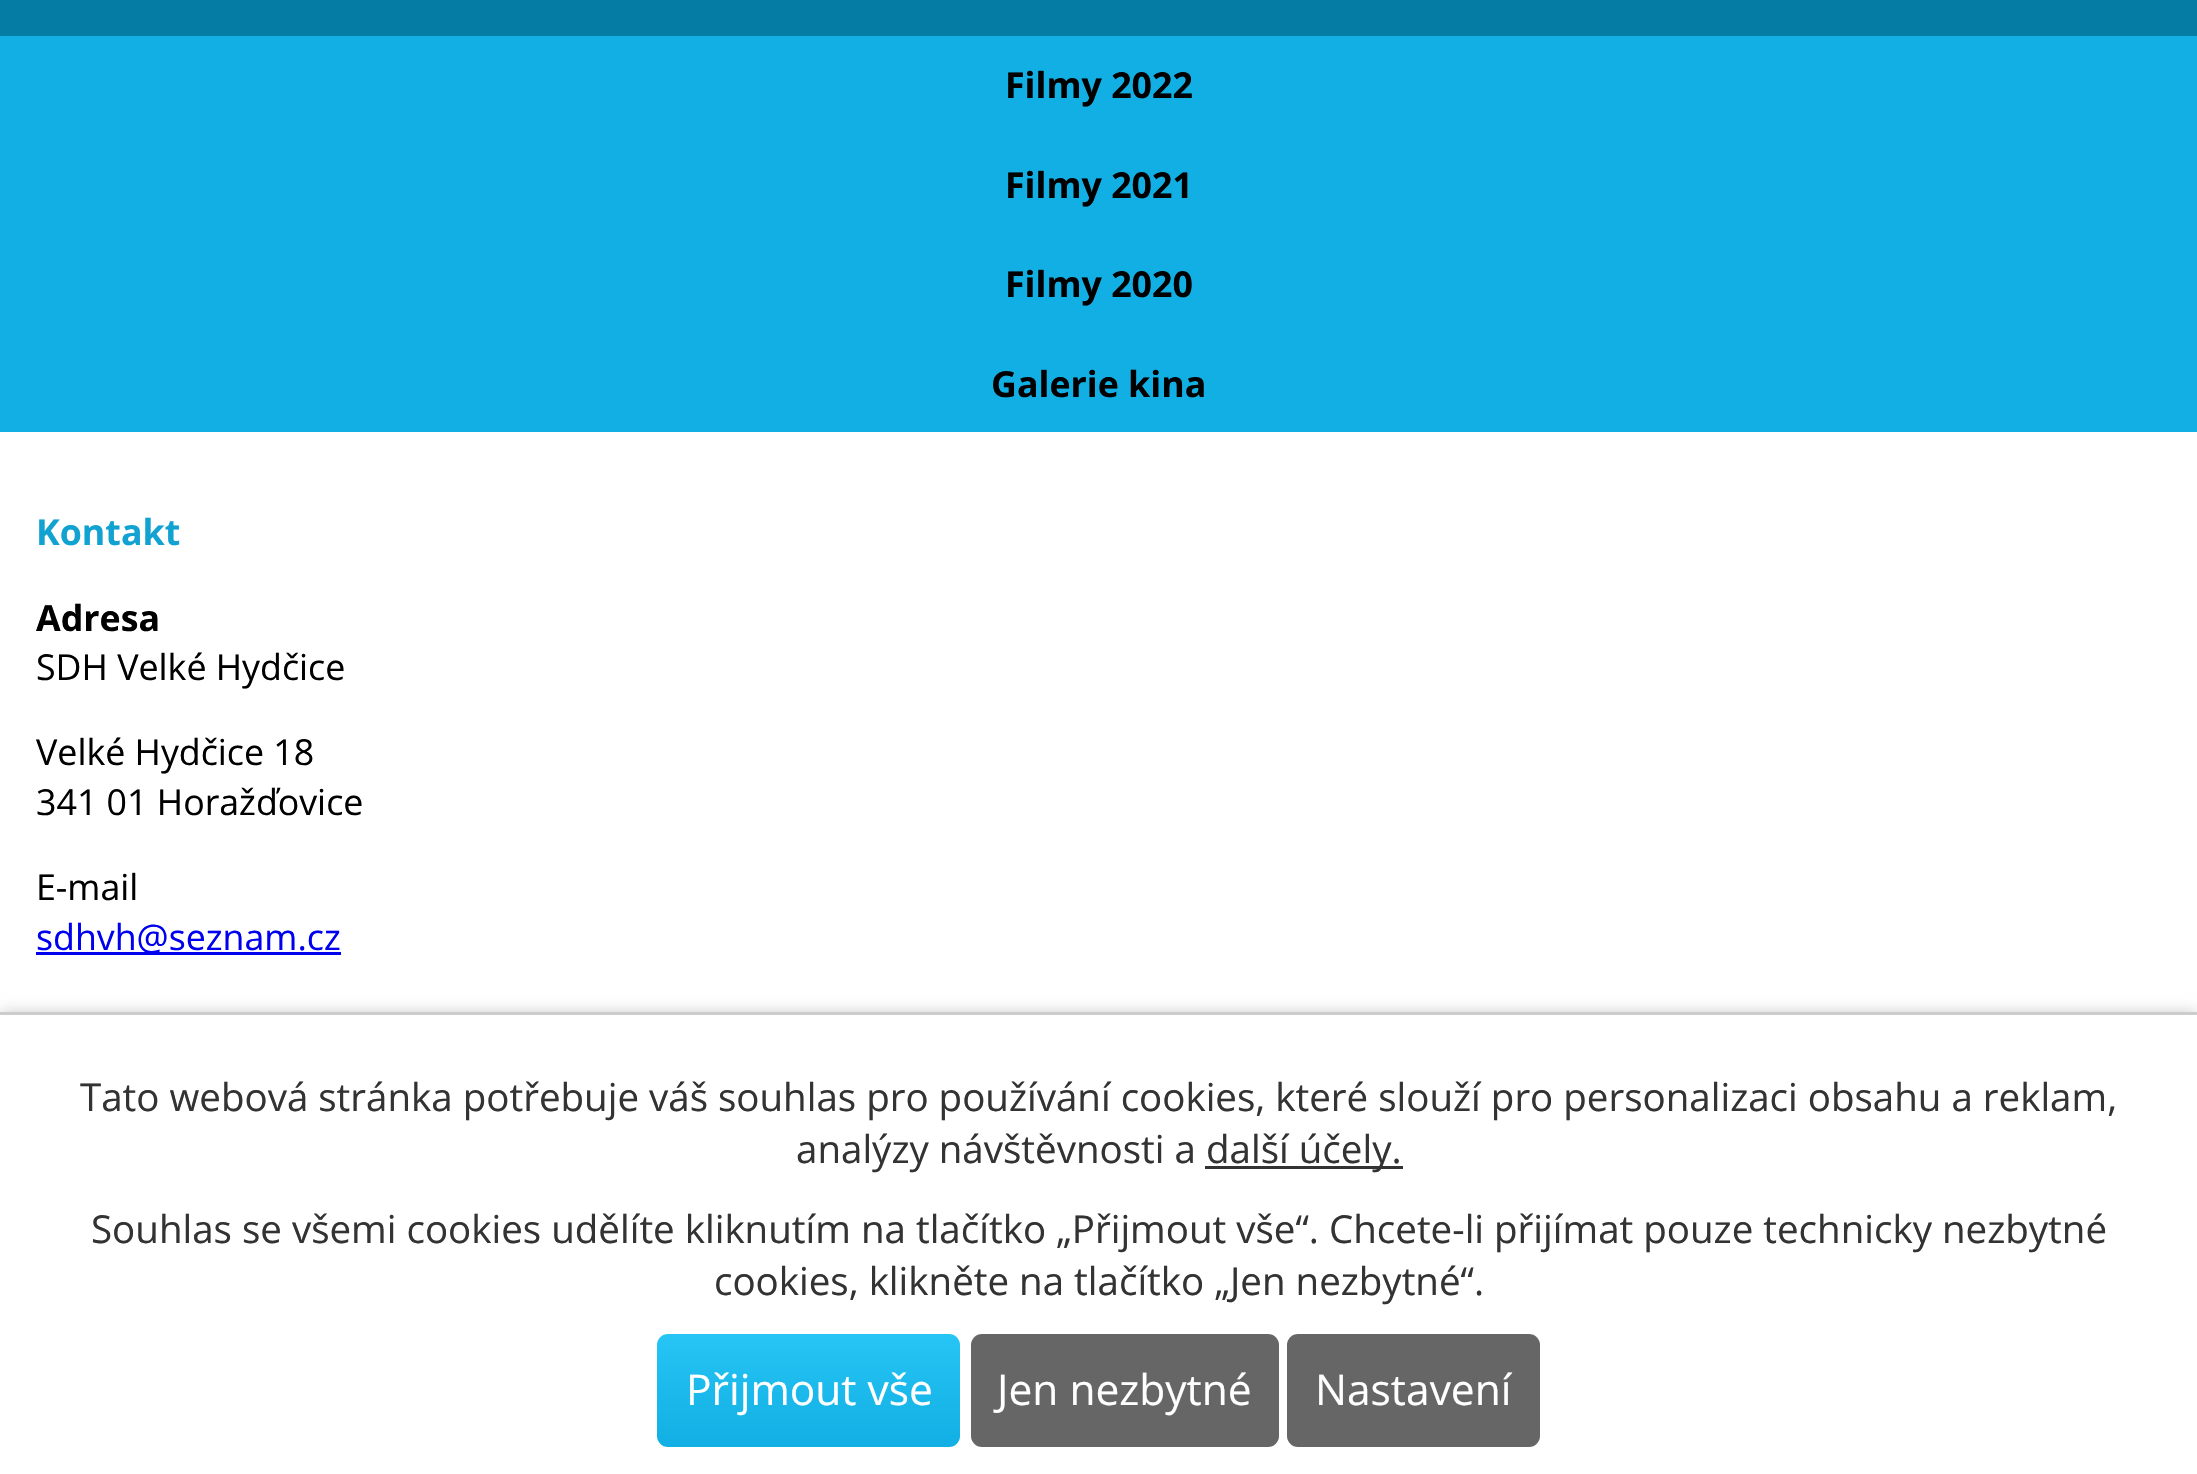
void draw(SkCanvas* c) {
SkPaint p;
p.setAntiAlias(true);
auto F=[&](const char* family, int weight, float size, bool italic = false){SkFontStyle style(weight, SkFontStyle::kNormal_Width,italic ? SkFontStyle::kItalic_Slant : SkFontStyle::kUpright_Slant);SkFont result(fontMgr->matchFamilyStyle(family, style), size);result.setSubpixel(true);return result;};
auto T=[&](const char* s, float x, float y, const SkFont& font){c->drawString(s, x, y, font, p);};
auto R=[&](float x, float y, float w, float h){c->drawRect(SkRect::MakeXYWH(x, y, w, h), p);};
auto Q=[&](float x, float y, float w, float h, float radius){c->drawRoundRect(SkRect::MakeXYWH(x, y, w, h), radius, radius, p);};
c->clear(0xffffffff);
p.setColor(0xff047ca3);
R(0,0,2197,36);
p.setColor(0xff11afe3);
R(0,36,2197,396);
auto f1 = F("Open Sans",700,35.75);
p.setColor(0xff000000);
T("Filmy 2022",1005,98,f1);
T("Filmy 2021",1005,198,f1);
T("Filmy 2020",1005,297,f1);
T("Galerie kina",991,397,f1);
p.setColor(0xff12a2d1);
T("Kontakt",36,545,f1);
p.setColor(0xff000000);
T("Adresa",36,631,f1);
auto f2 = F("Open Sans",400,35.75);
T("SDH Velké Hydčice",36,680,f2);
T("Velké Hydčice 18",36,765,f2);
T("341 01 Horažďovice",36,815,f2);
T("E-mail",36,900,f2);
p.setColor(0xff0000ee);
R(36,952,305,3);
T("sdhvh@seznam.cz",36,950,f2);
p.setColor(0x33000000);
p.setMaskFilter(SkMaskFilter::MakeBlur(kNormal_SkBlurStyle, 7));
c->drawRect(SkRect::MakeXYWH(0,1012,2197,462),p);
p.setMaskFilter(nullptr);
p.setColor(0xffffffff);
R(0,1015,2197,459);
p.setColor(0xffcccccc);
R(0,1012,2197,3);
auto f3 = F("Open Sans",400,38.5);
p.setColor(0xff333333);
T("Tato webová stránka potřebuje váš souhlas pro používání cookies, které slouží pro personalizaci obsahu a reklam,",80,1111,f3);
T("analýzy návštěvnosti a",796,1163,f3);
R(1205,1166,198,3);
T("další účely.",1206,1163,f3);
T("Souhlas se všemi cookies udělíte kliknutím na tlačítko „Přijmout vše“. Chcete-li přijímat pouze technicky nezbytné",91,1243,f3);
T("cookies, klikněte na tlačítko „Jen nezbytné“.",714,1295,f3);
{
const SkColor colors[] = {0xff27c5f5,0xff11afe3};
const float stops[] = {0,1};
const SkPoint ends[] = {{657,1334}, {657,1447}};
p.setShader(SkGradientShader::MakeLinear(ends, colors, stops, 2, SkTileMode::kClamp));
p.setAlpha(255);
}
Q(657,1334,303,113,11);
auto f4 = F("Open Sans",400,42.5);
p.setShader(nullptr);
p.setColor(0xffffffff);
T("Přijmout vše",686,1405,f4);
p.setColor(0xff666666);
Q(971,1334,308,113,11);
p.setColor(0xffffffff);
T("Jen nezbytné",997,1405,f4);
p.setColor(0xff666666);
Q(1287,1334,253,113,11);
p.setColor(0xffffffff);
T("Nastavení",1315,1405,f4);
}
